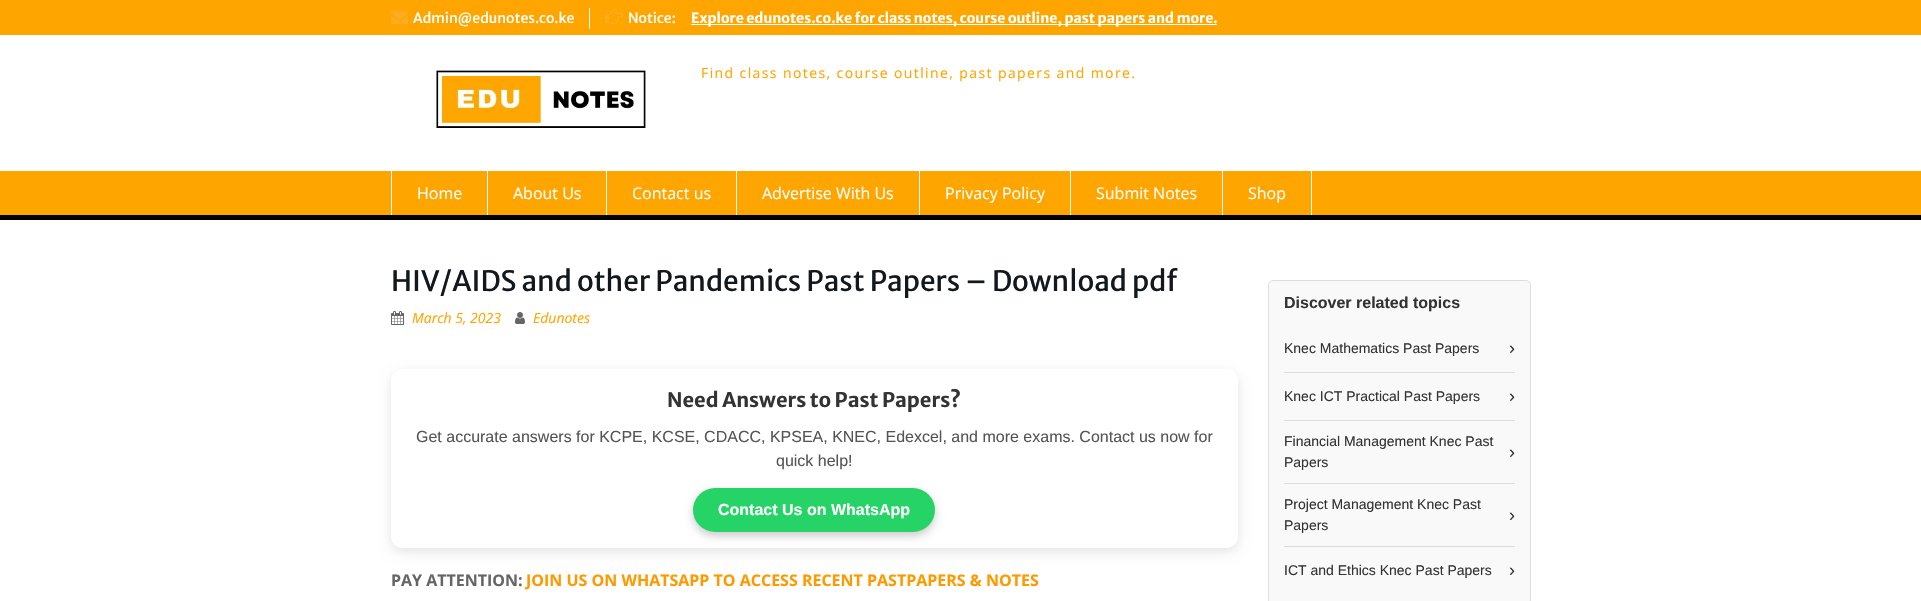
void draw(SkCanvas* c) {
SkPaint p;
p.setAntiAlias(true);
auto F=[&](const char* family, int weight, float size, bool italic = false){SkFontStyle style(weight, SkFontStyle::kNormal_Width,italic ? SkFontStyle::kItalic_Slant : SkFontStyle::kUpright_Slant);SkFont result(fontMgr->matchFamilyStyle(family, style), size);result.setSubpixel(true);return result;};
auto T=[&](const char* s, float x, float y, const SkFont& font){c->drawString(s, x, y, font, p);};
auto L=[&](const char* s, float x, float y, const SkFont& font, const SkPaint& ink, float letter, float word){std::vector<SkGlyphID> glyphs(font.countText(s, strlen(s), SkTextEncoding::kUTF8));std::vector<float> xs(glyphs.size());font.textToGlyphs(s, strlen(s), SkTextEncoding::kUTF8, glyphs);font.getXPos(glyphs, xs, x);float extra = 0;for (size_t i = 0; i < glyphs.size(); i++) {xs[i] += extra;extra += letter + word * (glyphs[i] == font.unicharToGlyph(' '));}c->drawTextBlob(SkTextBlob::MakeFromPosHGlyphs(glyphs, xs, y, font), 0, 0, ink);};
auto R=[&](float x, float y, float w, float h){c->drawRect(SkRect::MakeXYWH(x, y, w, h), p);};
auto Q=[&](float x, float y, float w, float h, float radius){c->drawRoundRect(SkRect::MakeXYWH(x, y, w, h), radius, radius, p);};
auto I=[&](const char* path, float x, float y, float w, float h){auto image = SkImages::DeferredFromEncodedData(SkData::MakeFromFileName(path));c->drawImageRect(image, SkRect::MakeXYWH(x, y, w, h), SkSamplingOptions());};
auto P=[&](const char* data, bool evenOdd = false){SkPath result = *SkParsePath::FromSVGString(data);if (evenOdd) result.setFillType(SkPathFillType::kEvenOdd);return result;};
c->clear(0xffffffff);
p.setColor(0xffffa500);
R(0,0,1921,35);
I("1.png",391,10,17,15);
auto f1 = F("Merriweather Sans",400,14);
p.setColor(0xffffffff);
T("Admin@edunotes.co.ke",413,23,f1);
R(589,8,1,21);
I("2.png",605,9,18,16);
T("Notice:",628,23,f1);
R(691,24,526,1);
auto f2 = F("Merriweather Sans",700,14);
T("Explore edunotes.co.ke for class notes, course outline, past papers and more.",691,23,f2);
I("3.png",436,70,210,58);
auto f3 = F("Open Sans",400,14);
p.setColor(0xffffa500);
L("Find class notes, course outline, past papers and more.",701,78,f3,p,1.4,0);
R(0,171,1921,44);
p.setColor(0xff000000);
R(0,215,1921,5);
p.setColor(0xffffffff);
R(487,171,1,44);
R(391,171,1,44);
auto f4 = F("Open Sans",400,16);
T("Home",417,199,f4);
R(606,171,1,44);
T("About Us",513,199,f4);
R(736,171,1,44);
T("Contact us",632,199,f4);
R(919,171,1,44);
T("Advertise With Us",762,199,f4);
R(1070,171,1,44);
T("Privacy Policy",945,199,f4);
R(1222,171,1,44);
T("Submit Notes",1096,199,f4);
R(1311,171,1,44);
T("Shop",1248,199,f4);
auto f5 = F("Merriweather Sans",400,28);
p.setColor(0xff12181e);
T("HIV/AIDS and other Pandemics Past Papers – Download pdf",391,291,f5);
I("4.png",391,311,13,14);
auto f6 = F("Open Sans",400,14,true);
p.setColor(0xffffa500);
T("March 5, 2023",412,323,f6);
I("5.png",515,312,10,12);
T("Edunotes",533,323,f6);
c->save();
c->clipPath(P("M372 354h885v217h-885zm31 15h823c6.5 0 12 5.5 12 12v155c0 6.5-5.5 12-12 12h-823c-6.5 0-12-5.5-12-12v-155c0-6.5 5.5-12 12-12z",true),true);
p.setColor(0x1a000000);
p.setMaskFilter(SkMaskFilter::MakeBlur(kNormal_SkBlurStyle, 6));
c->drawRoundRect(SkRect::MakeXYWH(391,373,847,179),12,12,p);
p.setMaskFilter(nullptr);
c->restore();
p.setColor(0xb3ffffff);
Q(391,369,847,179,12);
auto f7 = F("Merriweather Sans",700,20);
p.setColor(0xff333333);
T("Need Answers to Past Papers?",667,407,f7);
auto f8 = F("Liberation Sans",400,16);
p.setColor(0xff555555);
T("Get accurate answers for KCPE, KCSE, CDACC, KPSEA, KNEC, Edexcel, and more exams. Contact us now for",416,442,f8);
T("quick help!",776,466,f8);
p.setColor(0x33000000);
p.setMaskFilter(SkMaskFilter::MakeBlur(kNormal_SkBlurStyle, 4));
c->drawRoundRect(SkRect::MakeXYWH(693,492,242,44),22,22,p);
p.setMaskFilter(nullptr);
p.setColor(0xff25d366);
Q(693,488,242,44,22);
auto f9 = F("Liberation Sans",700,16);
p.setColor(0xffffffff);
T("Contact Us on WhatsApp",718,515,f9);
auto f10 = F("Open Sans",700,16);
p.setColor(0xff666666);
T("PAY ATTENTION:",391,586,f10);
p.setColor(0xffff9900);
T("JOIN US ON WHATSAPP TO ACCESS RECENT PASTPAPERS & NOTES",526,586,f10);
p.setColor(0xfff9f9f9);
c->drawRoundRect(SkRect::MakeXYWH(1268.5,280.5,262,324),4.5,4.5,p);
p.setStroke(true);
p.setStrokeWidth(1);
p.setColor(0xffdddddd);
c->drawRoundRect(SkRect::MakeXYWH(1268.5,280.5,262,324),4.5,4.5,p);
p.setStroke(false);
p.setColor(0xff333333);
T("Discover related topics",1284,308,f9);
auto f11 = F("Liberation Sans",400,14);
T("Knec Mathematics Past Papers",1284,353,f11);
auto f12 = F("Liberation Sans",400,18);
T("›",1509,354,f12);
p.setColor(0xffdddddd);
R(1284,372,231,1);
p.setColor(0xff333333);
T("Knec ICT Practical Past Papers",1284,401,f11);
T("›",1509,402,f12);
p.setColor(0xffdddddd);
R(1284,420,231,1);
p.setColor(0xff333333);
T("Financial Management Knec Past",1284,446,f11);
T("›",1509,458,f12);
T("Papers",1284,467,f11);
p.setColor(0xffdddddd);
R(1284,483,231,1);
p.setColor(0xff333333);
T("Project Management Knec Past",1284,509,f11);
T("›",1509,521,f12);
T("Papers",1284,530,f11);
p.setColor(0xffdddddd);
R(1284,546,231,1);
p.setColor(0xff333333);
T("ICT and Ethics Knec Past Papers",1284,575,f11);
T("›",1509,576,f12);
}
